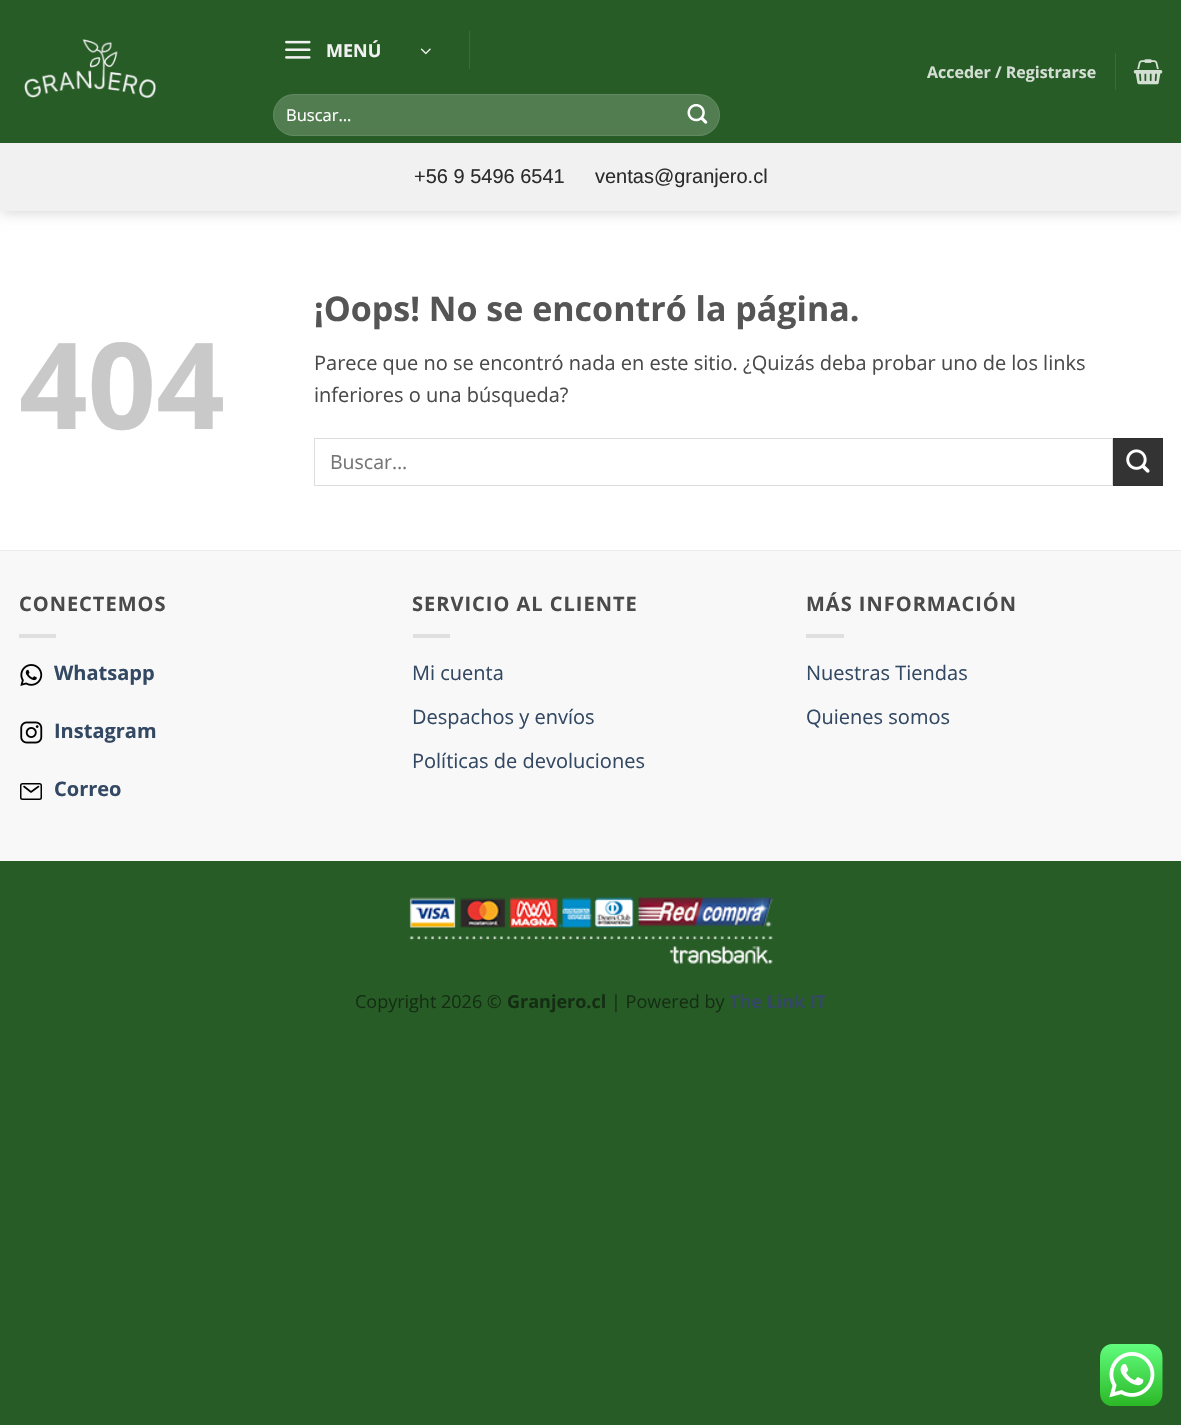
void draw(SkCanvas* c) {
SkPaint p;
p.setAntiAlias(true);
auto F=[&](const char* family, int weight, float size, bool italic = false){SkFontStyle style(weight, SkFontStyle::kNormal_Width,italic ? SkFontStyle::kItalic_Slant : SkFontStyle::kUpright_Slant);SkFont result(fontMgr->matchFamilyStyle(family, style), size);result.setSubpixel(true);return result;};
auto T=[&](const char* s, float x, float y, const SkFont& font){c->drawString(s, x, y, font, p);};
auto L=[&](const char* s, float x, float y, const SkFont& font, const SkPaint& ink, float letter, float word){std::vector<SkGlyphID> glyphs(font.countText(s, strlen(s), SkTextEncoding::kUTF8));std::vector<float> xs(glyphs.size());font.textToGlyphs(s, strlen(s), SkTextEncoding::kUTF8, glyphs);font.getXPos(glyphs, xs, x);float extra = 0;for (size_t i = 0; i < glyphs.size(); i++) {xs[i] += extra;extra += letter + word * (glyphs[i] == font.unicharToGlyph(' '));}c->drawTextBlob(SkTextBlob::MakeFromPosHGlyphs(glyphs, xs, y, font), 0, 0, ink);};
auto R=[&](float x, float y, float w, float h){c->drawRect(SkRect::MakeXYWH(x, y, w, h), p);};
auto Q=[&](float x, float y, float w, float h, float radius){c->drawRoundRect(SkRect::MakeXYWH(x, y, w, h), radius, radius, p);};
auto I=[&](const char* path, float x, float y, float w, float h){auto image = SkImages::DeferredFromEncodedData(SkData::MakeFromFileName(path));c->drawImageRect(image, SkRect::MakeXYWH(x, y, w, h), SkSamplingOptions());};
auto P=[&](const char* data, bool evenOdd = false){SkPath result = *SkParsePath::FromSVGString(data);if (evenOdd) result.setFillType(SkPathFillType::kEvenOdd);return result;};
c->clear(0xff275c26);
p.setColor(0xffffffff);
R(0,211,1181,339);
p.setColor(0x26000000);
p.setMaskFilter(SkMaskFilter::MakeBlur(kNormal_SkBlurStyle, 6));
c->drawRect(SkRect::MakeXYWH(1,1,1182,212),p);
p.setMaskFilter(nullptr);
p.setColor(0xff275c26);
R(0,0,1181,143);
I("1.png",24,39,132,59);
I("2.png",285,40,26,19);
auto f1 = F("Open Sans",700,18);
p.setColor(0xfff1f1f1);
T("MENÚ",326,57,f1);
I("3.png",420,48,11,7);
p.setColor(0xff3d6c3c);
R(469,31,1,38);
p.setColor(0xff527d51);
Q(273,94,447,42,21);
p.setStroke(true);
p.setStrokeWidth(1);
p.setColor(0x17ffffff);
c->drawRoundRect(SkRect::MakeXYWH(273.5,94.5,446,41),20.5,20.5,p);
auto f2 = F("Open Sans",400,16.5);
p.setStroke(false);
p.setColor(0xffffffff);
T("Buscar…",286,121,f2);
I("4.png",687,103,21,21);
auto f3 = F("Open Sans",700,16);
p.setColor(0xffd4ded4);
T("Acceder / Registrarse",927,78,f3);
p.setColor(0xff3d6c3c);
R(1115,53,1,37);
I("5.png",1133,59,30,26);
p.setColor(0xfff1f1f1);
R(0,143,1181,68);
auto f4 = F("Liberation Sans",400,20);
p.setColor(0xff2c2c2c);
T("+56 9 5496 6541",414,183,f4);
T("ventas@granjero.cl",595,183,f4);
auto f5 = F("Open Sans",700,120);
p.setColor(0xffc9c9c9);
T("404",19,429,f5);
auto f6 = F("Open Sans",700,34);
p.setColor(0xff555555);
T("¡Oops! No se encontró la página.",314,321,f6);
auto f7 = F("Open Sans",400,20);
p.setColor(0xff4a4a4a);
T("Parece que no se encontró nada en este sitio. ¿Quizás deba probar uno de los links",314,370,f7);
T("inferiores o una búsqueda?",314,402,f7);
p.setStroke(true);
p.setColor(0xffdddddd);
c->drawRect(SkRect::MakeXYWH(314.5,438.5,798,47),p);
auto f8 = F("Open Sans",400,19.5);
p.setStroke(false);
p.setColor(0xff757575);
T("Buscar…",330,469,f8);
p.setColor(0xff333333);
c->drawRect(SkRect::MakeXYWH(1113.5,438.5,49,47),p);
p.setStroke(true);
p.setColor(0xff303030);
c->drawRect(SkRect::MakeXYWH(1113.5,438.5,49,47),p);
I("6.png",1126,449,24,24);
p.setStroke(false);
p.setColor(0xfff8f8f8);
R(0,551,1181,310);
p.setColor(0xffececec);
R(0,550,1181,1);
auto f9 = F("Open Sans",700,20);
p.setColor(0xff4a4a4a);
L("CONECTEMOS",19,611,f9,p,1,0);
p.setColor(0xffdfdfdf);
R(19,634,37,4);
I("7.png",20,664,23,22);
p.setColor(0xff334862);
T("Whatsapp",54,680,f9);
I("8.png",20,721,23,23);
T("Instagram",54,738,f9);
p.setStroke(true);
p.setStrokeWidth(1.5);
p.setColor(0xff000000);
c->drawRoundRect(SkRect::MakeXYWH(20.75,783.75,20.5,15.5),1.75,1.75,p);
p.setStrokeWidth(1.6);
p.setStrokeCap(SkPaint::kRound_Cap);
p.setStrokeJoin(SkPaint::kRound_Join);
c->drawPath(P("M24 786.5l7 5.5l7.5-5.5"),p);
p.setStroke(false);
p.setColor(0xff334862);
T("Correo",54,796,f9);
p.setColor(0xff4a4a4a);
L("SERVICIO AL CLIENTE",412,611,f9,p,1,0);
p.setColor(0xffdfdfdf);
R(413,634,37,4);
p.setColor(0xff334862);
T("Mi cuenta",412,680,f7);
T("Despachos y envíos",412,724,f7);
T("Políticas de devoluciones",412,768,f7);
p.setColor(0xff4a4a4a);
L("MÁS INFORMACIÓN",806,611,f9,p,1,0);
p.setColor(0xffdfdfdf);
R(806,634,38,4);
p.setColor(0xff334862);
T("Nuestras Tiendas",806,680,f7);
T("Quienes somos",806,724,f7);
I("9.png",409,897,364,67);
auto f10 = F("Open Sans",400,18);
p.setColor(0xff142e13);
T("Copyright 2026 ©",355,1008,f10);
T("Granjero.cl",507,1008,f1);
T("| Powered by",611,1008,f10);
p.setColor(0xff334862);
T("The Link IT",729,1008,f1);
I("10.png",1100,1344,63,62);
}
